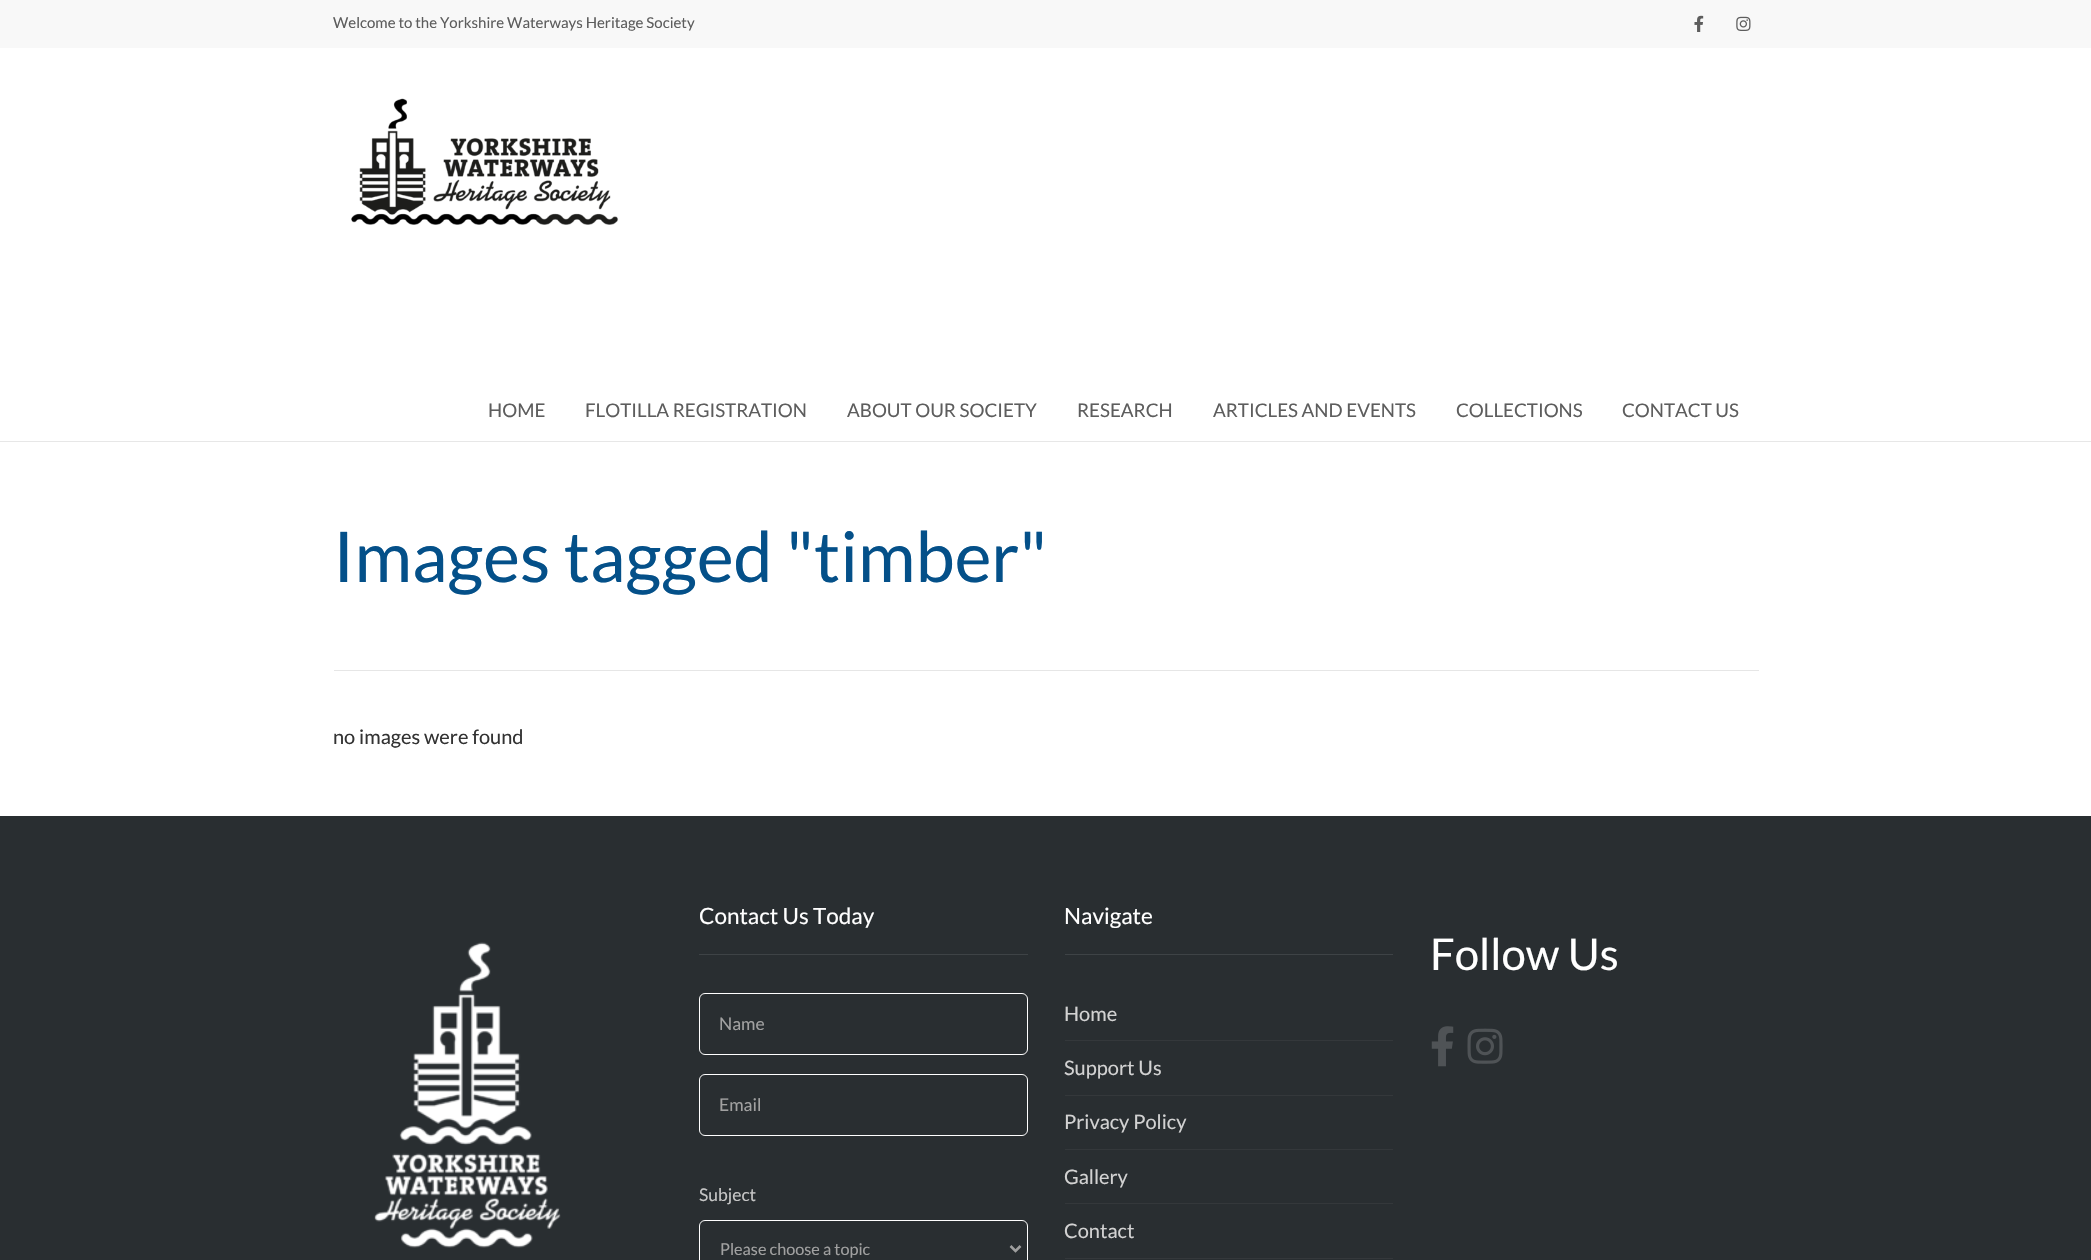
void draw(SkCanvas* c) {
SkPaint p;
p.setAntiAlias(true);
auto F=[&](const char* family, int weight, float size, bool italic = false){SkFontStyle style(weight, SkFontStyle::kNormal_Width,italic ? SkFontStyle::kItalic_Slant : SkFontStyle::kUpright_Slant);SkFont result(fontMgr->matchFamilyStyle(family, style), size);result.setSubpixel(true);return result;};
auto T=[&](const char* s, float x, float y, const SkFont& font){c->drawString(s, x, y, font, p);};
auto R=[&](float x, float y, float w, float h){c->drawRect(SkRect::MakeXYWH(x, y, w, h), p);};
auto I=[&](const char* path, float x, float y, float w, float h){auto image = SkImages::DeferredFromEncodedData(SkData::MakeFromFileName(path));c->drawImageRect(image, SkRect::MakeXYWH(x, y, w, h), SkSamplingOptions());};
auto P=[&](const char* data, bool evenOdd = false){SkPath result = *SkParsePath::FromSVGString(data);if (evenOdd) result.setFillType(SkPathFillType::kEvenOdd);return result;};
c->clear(0xffffffff);
p.setColor(0xffe7e7e7);
R(0,441,2091,1);
p.setColor(0xfff8f8f8);
R(0,0,2091,48);
auto f1 = F("Lato",400,15);
p.setColor(0xff5d5d5d);
T("Welcome to the Yorkshire Waterways Heritage Society",333,28,f1);
I("1.png",1694,15,10,17);
I("2.png",1736,16,15,15);
I("3.png",351,98,268,127);
auto f2 = F("Lato",400,18.75);
T("HOME",488,417,f2);
T("FLOTILLA REGISTRATION",585,417,f2);
T("ABOUT OUR SOCIETY",847,417,f2);
T("RESEARCH",1077,417,f2);
T("ARTICLES AND EVENTS",1213,417,f2);
T("COLLECTIONS",1456,417,f2);
T("CONTACT US",1622,417,f2);
p.setColor(0xffe6e6e6);
R(334,670,1425,1);
auto f3 = F("Lato",400,70);
p.setColor(0xff045089);
T("Images tagged \"timber\"",333,582,f3);
auto f4 = F("Lato",400,20);
p.setColor(0xff333333);
T("no images were found",333,744,f4);
p.setColor(0xff292e31);
R(0,816,2091,444);
I("4.png",374,942,187,306);
p.setColor(0xff3e4346);
R(699,954,329,1);
auto f5 = F("Lato",400,22.5);
p.setColor(0xffffffff);
T("Contact Us Today",699,924,f5);
p.setStroke(true);
p.setStrokeWidth(1);
c->drawRoundRect(SkRect::MakeXYWH(699.5,993.5,328,61),5.5,5.5,p);
auto f6 = F("Lato",400,17.5);
p.setStroke(false);
p.setColor(0xffa1a1a1);
T("Name",719,1030,f6);
p.setStroke(true);
p.setColor(0xffffffff);
c->drawRoundRect(SkRect::MakeXYWH(699.5,1074.5,328,61),5.5,5.5,p);
p.setStroke(false);
p.setColor(0xffa1a1a1);
T("Email",719,1111,f6);
p.setColor(0xffc6c6c6);
T("Subject",699,1201,f6);
p.setStroke(true);
p.setColor(0xffffffff);
c->drawRoundRect(SkRect::MakeXYWH(699.5,1220.5,328,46),5.5,5.5,p);
p.setStrokeWidth(2.5);
p.setColor(0xff9f9f9f);
c->drawPath(P("M1010.5 1246l5 5l5-5"),p);
auto f7 = F("Lato",400,16.25);
p.setStroke(false);
p.setColor(0xffa1a1a1);
T("Please choose a topic",720,1255,f7);
p.setColor(0xff3e4346);
R(1065,954,328,1);
p.setColor(0xffffffff);
T("Navigate",1064,924,f5);
p.setColor(0xff34383b);
R(1065,1040,328,1);
p.setColor(0xffd2d2d2);
T("Home",1064,1021,f4);
p.setColor(0xff34383b);
R(1065,1095,328,1);
p.setColor(0xffd2d2d2);
T("Support Us",1064,1075,f4);
p.setColor(0xff34383b);
R(1065,1149,328,1);
p.setColor(0xffd2d2d2);
T("Privacy Policy",1064,1129,f4);
p.setColor(0xff34383b);
R(1065,1203,328,1);
p.setColor(0xffd2d2d2);
T("Gallery",1064,1184,f4);
p.setColor(0xff34383b);
R(1065,1258,328,1);
p.setColor(0xffd2d2d2);
T("Contact",1064,1238,f4);
auto f8 = F("Lato",400,43.75);
p.setColor(0xffffffff);
T("Follow Us",1430,970,f8);
I("5.png",1431,1026,23,41);
I("6.png",1467,1028,36,36);
}
